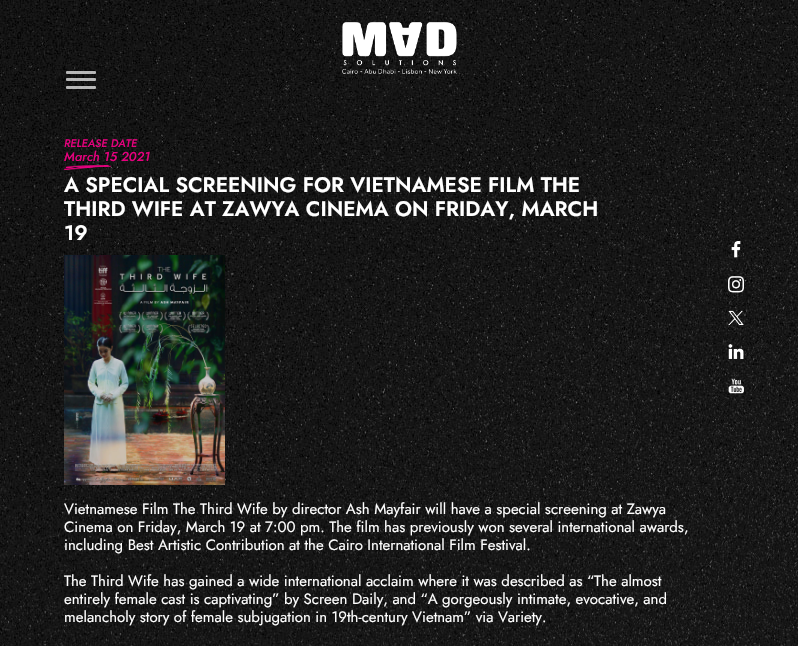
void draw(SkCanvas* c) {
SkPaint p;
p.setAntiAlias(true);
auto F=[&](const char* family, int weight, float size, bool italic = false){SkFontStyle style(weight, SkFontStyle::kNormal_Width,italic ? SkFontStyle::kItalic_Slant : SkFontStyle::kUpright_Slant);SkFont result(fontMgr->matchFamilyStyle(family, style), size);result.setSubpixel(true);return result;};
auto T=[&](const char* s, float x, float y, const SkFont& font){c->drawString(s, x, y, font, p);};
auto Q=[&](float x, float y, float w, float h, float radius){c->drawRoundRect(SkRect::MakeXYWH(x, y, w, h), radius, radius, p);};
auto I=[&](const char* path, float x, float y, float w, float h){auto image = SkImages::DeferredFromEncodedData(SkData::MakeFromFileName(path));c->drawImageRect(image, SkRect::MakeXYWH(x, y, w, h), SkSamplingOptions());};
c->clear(0xffffffff);
I("2.png",0,0,798,646);
I("1.png",342,22,115,52);
p.setColor(0xb3ffffff);
Q(66,71,30,3,1);
Q(66,78,30,3,1);
Q(66,86,30,3,1);
I("3.png",64,165,47,5);
auto f1 = F("Jost",500,11,true);
p.setColor(0xffe6007d);
T("RELEASE DATE",64,147,f1);
auto f2 = F("Jost",500,13,true);
T("March 15 2021",64,161,f2);
auto f3 = F("Jost",600,21);
p.setColor(0xffffffff);
T("A SPECIAL SCREENING FOR VIETNAMESE FILM THE",64,192,f3);
T("THIRD WIFE AT ZAWYA CINEMA ON FRIDAY, MARCH",64,216,f3);
T("19",64,240,f3);
I("4.png",64,255,161,230);
auto f4 = F("Jost",400,15);
T("Vietnamese Film The Third Wife by director Ash Mayfair will have a special screening at Zawya",64,514,f4);
T("Cinema on Friday, March 19 at 7:00 pm. The film has previously won several international awards,",64,532,f4);
T("including Best Artistic Contribution at the Cairo International Film Festival.",64,550,f4);
T("The Third Wife has gained a wide international acclaim where it was described as “The almost",64,586,f4);
T("entirely female cast is captivating” by Screen Daily, and “A gorgeously intimate, evocative, and",64,604,f4);
T("melancholy story of female subjugation in 19th-century Vietnam” via Variety.",64,622,f4);
I("5.png",731,241,10,17);
I("6.png",728,276,16,17);
I("7.png",728,310,16,16);
I("8.png",728,344,16,15);
I("9.png",728,378,16,16);
}
